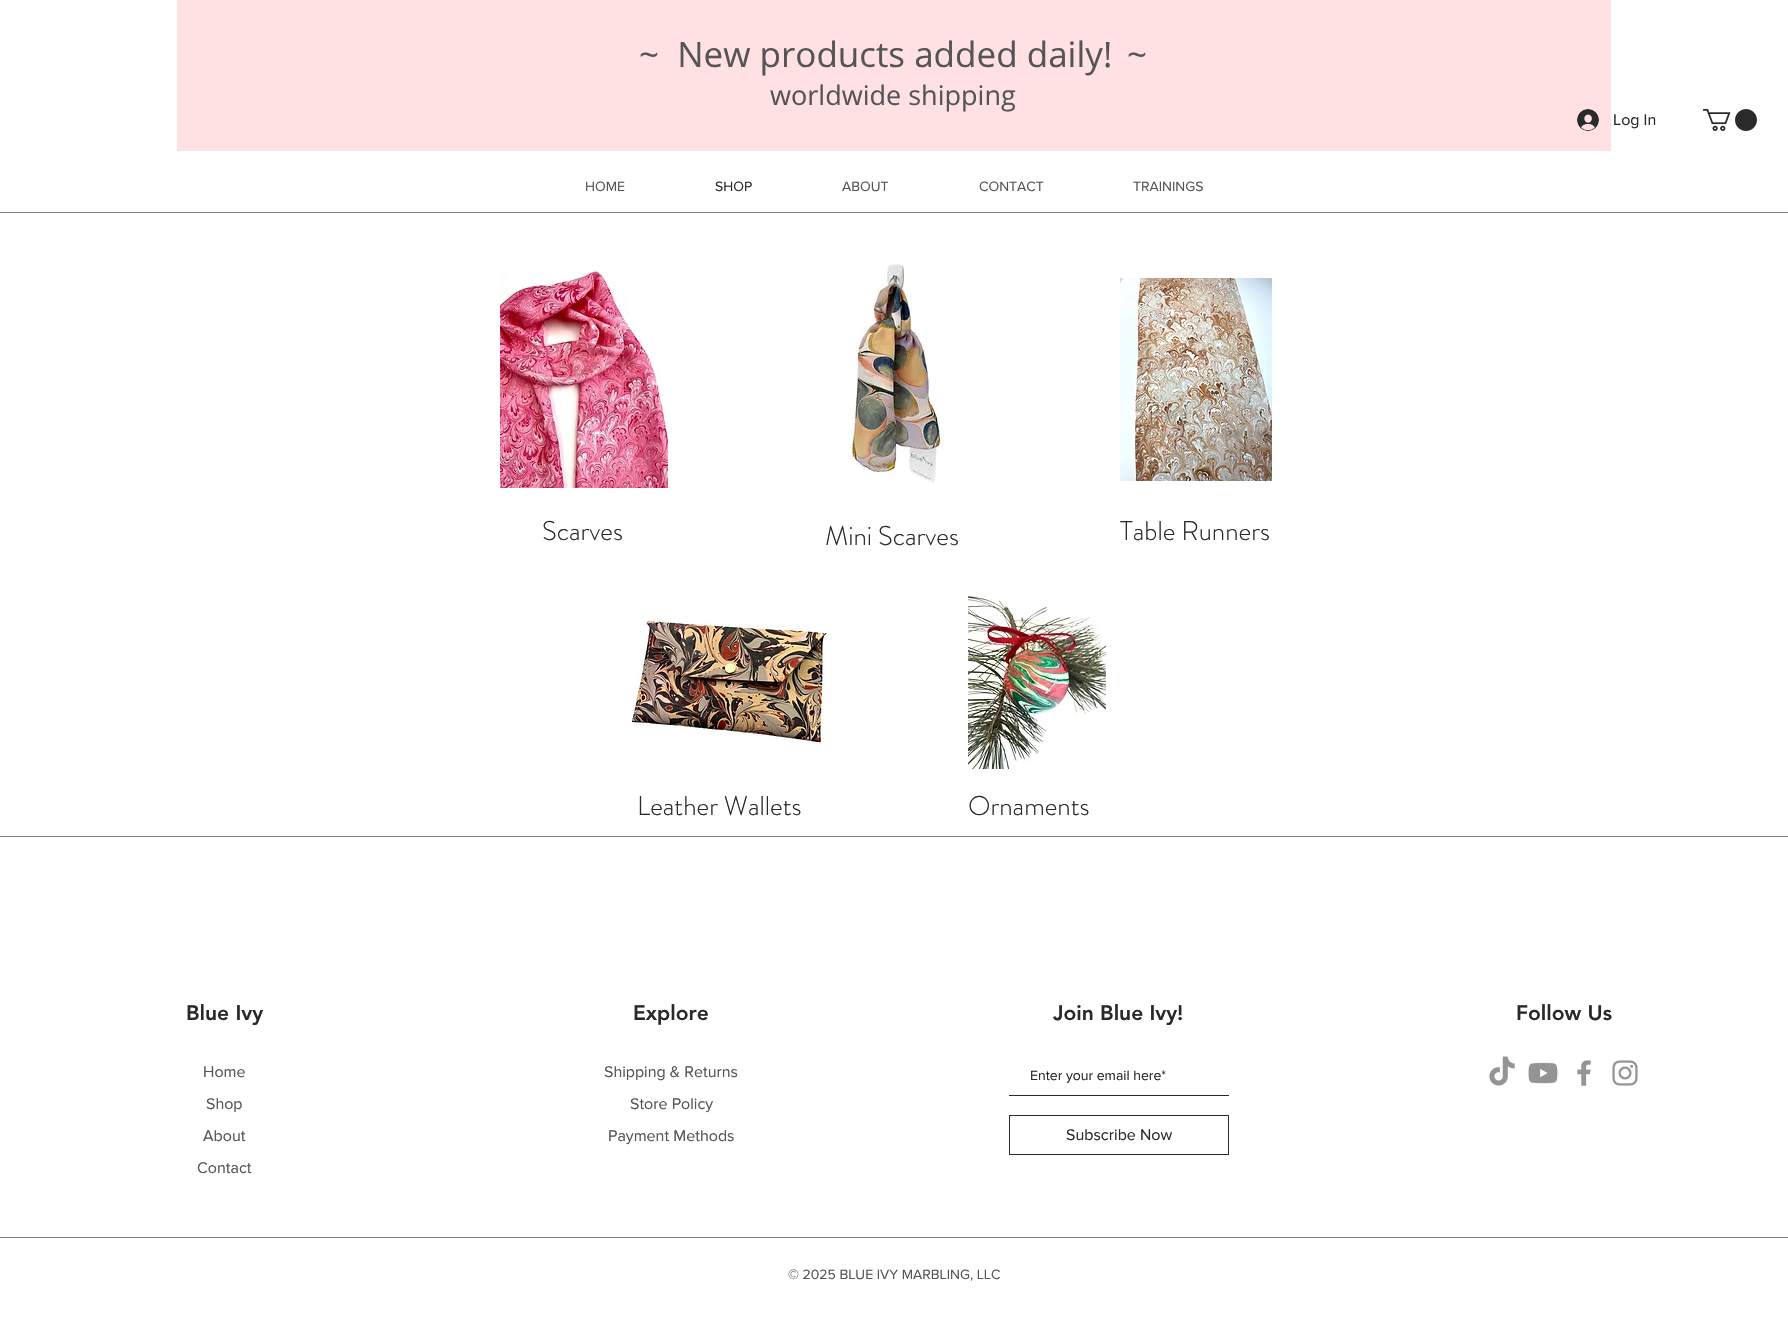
void draw(SkCanvas* c) {
SkPaint p;
p.setAntiAlias(true);
auto F=[&](const char* family, int weight, float size, bool italic = false){SkFontStyle style(weight, SkFontStyle::kNormal_Width,italic ? SkFontStyle::kItalic_Slant : SkFontStyle::kUpright_Slant);SkFont result(fontMgr->matchFamilyStyle(family, style), size);result.setSubpixel(true);return result;};
auto T=[&](const char* s, float x, float y, const SkFont& font){c->drawString(s, x, y, font, p);};
auto R=[&](float x, float y, float w, float h){c->drawRect(SkRect::MakeXYWH(x, y, w, h), p);};
auto I=[&](const char* path, float x, float y, float w, float h){auto image = SkImages::DeferredFromEncodedData(SkData::MakeFromFileName(path));c->drawImageRect(image, SkRect::MakeXYWH(x, y, w, h), SkSamplingOptions());};
c->clear(0xffffffff);
p.setColor(0xffffe0e3);
R(177,0,1434,151);
auto f1 = F("Open Sans",400,35);
p.setColor(0xff555555);
T("~  New products added daily!",639,67,f1);
T("~",1127,67,f1);
auto f2 = F("Open Sans",400,27);
T("worldwide shipping",770,105,f2);
auto f3 = F("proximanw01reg",400,14);
T("HOME",585,191,f3);
p.setColor(0xff292929);
T("SHOP",715,191,f3);
p.setColor(0xff555555);
T("ABOUT",842,191,f3);
T("CONTACT",979,191,f3);
T("TRAININGS",1133,191,f3);
p.setColor(0xff808080);
R(0,212,1788,1);
I("1.png",1577,109,22,22);
auto f4 = F("proximanw01reg",400,16);
p.setColor(0xff292929);
T("Log In",1613,125,f4);
I("2.png",1703,109,54,22);
I("3.png",500,270,168,218);
I("4.png",848,264,96,219);
I("5.png",1120,278,152,203);
auto f5 = F("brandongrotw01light",300,27);
T("Scarves",542,540,f5);
T("Mini Scarves",825,545,f5);
T("Table Runners",1120,540,f5);
I("6.png",632,621,195,122);
I("7.png",968,594,138,175);
T("Leather Wallets",637,815,f5);
T("Ornaments",968,815,f5);
p.setColor(0xff808080);
R(0,836,1788,1);
auto f6 = F("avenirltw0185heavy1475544",900,21);
p.setColor(0xff292929);
T("Blue Ivy",186,1020,f6);
p.setColor(0xff555555);
T("Home",203,1077,f4);
T("Shop",206,1109,f4);
T("About",203,1141,f4);
T("Contact",197,1173,f4);
p.setColor(0xff292929);
T("Explore",633,1020,f6);
p.setColor(0xff555555);
T("Shipping & Returns",604,1077,f4);
T("Store Policy",630,1109,f4);
T("Payment Methods",608,1141,f4);
p.setColor(0xff292929);
T("Join Blue Ivy!",1053,1020,f6);
p.setColor(0xff2a2a2a);
R(1009,1095,220,1);
p.setColor(0xff292929);
T("Enter your email here*",1030,1080,f3);
p.setStroke(true);
p.setStrokeWidth(1);
p.setColor(0xff2a2a2a);
c->drawRect(SkRect::MakeXYWH(1009.5,1115.5,219,39),p);
p.setStroke(false);
p.setColor(0xff292929);
T("Subscribe Now",1066,1140,f4);
T("Follow Us",1516,1020,f6);
I("8.png",1489,1056,26,30);
I("9.png",1528,1062,30,22);
I("10.png",1577,1060,14,26);
I("11.png",1612,1060,26,26);
p.setColor(0xff808080);
R(0,1237,1788,1);
p.setColor(0xff555555);
T("© 2025 BLUE IVY MARBLING, LLC",788,1279,f3);
}
